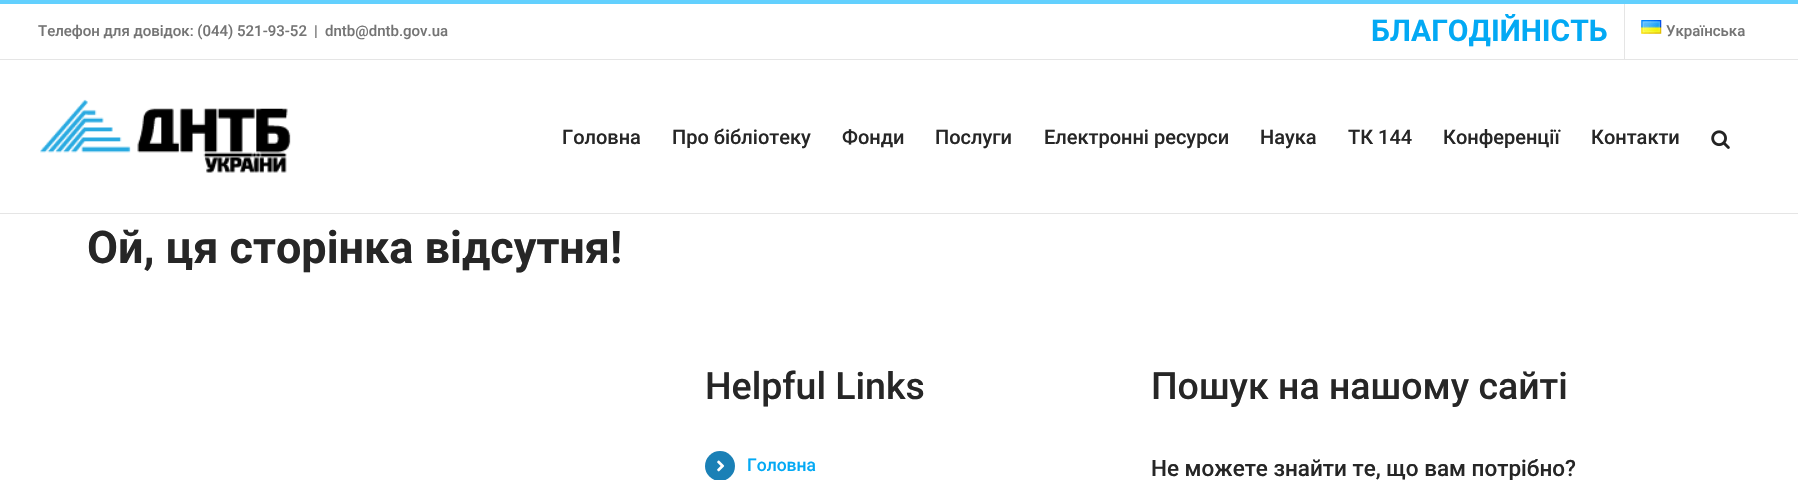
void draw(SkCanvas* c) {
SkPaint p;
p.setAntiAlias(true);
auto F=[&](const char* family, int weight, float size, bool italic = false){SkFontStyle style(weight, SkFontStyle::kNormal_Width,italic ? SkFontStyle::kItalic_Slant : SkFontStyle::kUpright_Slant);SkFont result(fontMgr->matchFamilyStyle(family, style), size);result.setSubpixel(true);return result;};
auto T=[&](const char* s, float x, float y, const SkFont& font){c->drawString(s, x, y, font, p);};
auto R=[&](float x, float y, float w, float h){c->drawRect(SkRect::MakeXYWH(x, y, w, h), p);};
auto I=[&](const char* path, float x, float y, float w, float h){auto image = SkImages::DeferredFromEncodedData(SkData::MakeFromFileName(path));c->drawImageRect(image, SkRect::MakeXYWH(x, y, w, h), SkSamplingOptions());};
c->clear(0xffffffff);
p.setColor(0xff62d0fe);
R(0,0,1798,4);
p.setColor(0xffe5e5e5);
R(0,59,1798,1);
auto f1 = F("Roboto",500,15);
p.setColor(0xff747474);
T("Телефон для довідок: (044) 521-93-52",38,36,f1);
T("|",314,36,f1);
T("dntb@dntb.gov.ua",325,36,f1);
auto f2 = F("Roboto",700,30);
p.setColor(0xff03a9f4);
T("БЛАГОДІЙНІСТЬ",1371,41,f2);
p.setColor(0xffe5e5e5);
R(1624,4,1,55);
I("1.png",1641,20,21,14);
p.setColor(0xff747474);
T("Українська",1666,36,f1);
p.setColor(0xffe5e5e5);
R(0,213,1798,1);
I("2.png",40,99,251,74);
auto f3 = F("Roboto",500,20);
p.setColor(0xff262626);
T("Головна",562,144,f3);
T("Про бібліотеку",672,144,f3);
T("Фонди",842,144,f3);
T("Послуги",935,144,f3);
T("Електронні ресурси",1044,144,f3);
T("Наука",1260,144,f3);
T("ТК 144",1348,144,f3);
T("Конференції",1443,144,f3);
T("Контакти",1591,144,f3);
I("3.png",1711,130,19,19);
auto f4 = F("Roboto",700,45);
T("Ой, ця сторінка відсутня!",87,263,f4);
auto f5 = F("Roboto",500,37.5);
T("Helpful Links",705,399,f5);
p.setColor(0xff1a80b6);
c->drawCircle(720,466,15,p);
I("4.png",717,460,8,12);
auto f6 = F("Roboto",500,17.5);
p.setColor(0xff03a9f4);
T("Головна",747,471,f6);
p.setColor(0xff262626);
T("Пошук на нашому сайті",1151,399,f5);
auto f7 = F("Roboto",500,22.5);
T("Не можете знайти те, що вам потрібно?",1151,476,f7);
}
